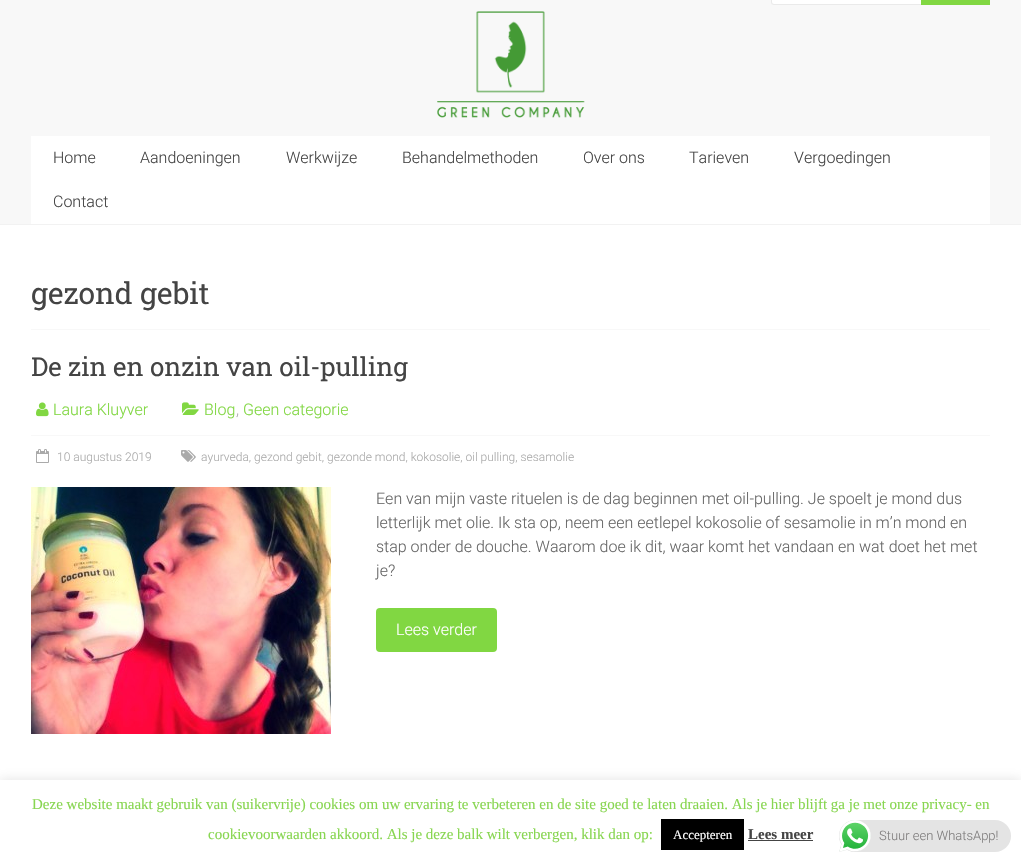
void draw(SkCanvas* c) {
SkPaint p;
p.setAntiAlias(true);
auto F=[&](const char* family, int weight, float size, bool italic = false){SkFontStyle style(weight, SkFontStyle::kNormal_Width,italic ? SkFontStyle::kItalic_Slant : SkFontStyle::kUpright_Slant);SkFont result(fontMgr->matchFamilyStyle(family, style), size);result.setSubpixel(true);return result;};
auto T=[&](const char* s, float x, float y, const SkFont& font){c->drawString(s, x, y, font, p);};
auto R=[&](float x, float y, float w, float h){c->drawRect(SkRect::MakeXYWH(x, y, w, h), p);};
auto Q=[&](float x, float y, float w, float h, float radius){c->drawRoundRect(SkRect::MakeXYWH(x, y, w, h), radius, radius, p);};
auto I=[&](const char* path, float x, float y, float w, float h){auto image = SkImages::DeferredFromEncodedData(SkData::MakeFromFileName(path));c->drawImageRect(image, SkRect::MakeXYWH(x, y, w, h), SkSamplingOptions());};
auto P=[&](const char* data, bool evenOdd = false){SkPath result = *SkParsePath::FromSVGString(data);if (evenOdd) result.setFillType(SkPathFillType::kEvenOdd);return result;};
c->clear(0xffffffff);
p.setColor(0xfff8f8f8);
R(0,0,1021,224);
p.setColor(0xfff2f2f2);
R(0,224,1021,1);
p.setColor(0xffffffff);
c->drawPath(P("M774-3h147v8h-147c-1.5 0-3-1.5-3-3v-2c0-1.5 1.5-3 3-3z"),p);
p.setColor(0xffeaeaea);
c->drawPath(P("M774-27h147v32h-147c-2 0-3-1-3-3v-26c0-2 1-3 3-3zm0 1h147v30h-147c-1 0-2-1-2-2v-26c0-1 1-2 2-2z",true),p);
p.setColor(0xff81d742);
R(921,0,69,5);
I("1.png",437,11,148,107);
p.setColor(0xffffffff);
R(31,136,959,88);
auto f1 = F("Roboto",300,16);
p.setColor(0xff444444);
T("Home",53,163,f1);
T("Aandoeningen",140,163,f1);
T("Werkwijze",286,163,f1);
T("Behandelmethoden",402,163,f1);
T("Over ons",583,163,f1);
T("Tarieven",689,163,f1);
T("Vergoedingen",794,163,f1);
T("Contact",53,207,f1);
p.setColor(0xfff8f8f8);
R(31,329,959,1);
auto f2 = F("Roboto Slab",400,30);
p.setColor(0xff444444);
T("gezond gebit",31,304,f2);
auto f3 = F("Roboto Slab",400,26);
T("De zin en onzin van oil-pulling",31,376,f3);
I("2.png",36,402,13,15);
p.setColor(0xff81d742);
T("Laura Kluyver",53,415,f1);
I("3.png",182,402,17,13);
T("Blog",204,415,f1);
p.setColor(0xffaaaaaa);
T(",",236,415,f1);
p.setColor(0xff81d742);
T("Geen categorie",243,415,f1);
p.setColor(0xfff8f8f8);
R(31,435,959,1);
I("4.png",36,449,13,14);
auto f4 = F("Roboto",300,12);
p.setColor(0xffaaaaaa);
T("10 augustus 2019",57,461,f4);
I("5.png",181,450,15,12);
T("ayurveda, gezond gebit, gezonde mond, kokosolie, oil pulling, sesamolie",201,461,f4);
I("6.png",31,487,300,247);
p.setColor(0xff666666);
T("Een van mijn vaste rituelen is de dag beginnen met oil-pulling. Je spoelt je mond dus",376,504,f1);
T("letterlijk met olie. Ik sta op, neem een eetlepel kokosolie of sesamolie in m’n mond en",376,528,f1);
T("stap onder de douche. Waarom doe ik dit, waar komt het vandaan en wat doet het met",376,552,f1);
T("je?",376,576,f1);
p.setColor(0xff81d742);
Q(376,608,121,44,4);
p.setColor(0xffffffff);
T("Lees verder",396,635,f1);
p.setColor(0x4dacabab);
p.setMaskFilter(SkMaskFilter::MakeBlur(kNormal_SkBlurStyle, 5));
c->drawRect(SkRect::MakeXYWH(0,779,1021,82),p);
p.setMaskFilter(nullptr);
p.setColor(0xffffffff);
R(0,780,1021,82);
auto f5 = F("Liberation Serif",400,15);
p.setColor(0xff88d651);
T("Deze website maakt gebruik van (suikervrije) cookies om uw ervaring te verbeteren en de site goed te laten draaien. Als je hier blijft ga je met onze privacy- en",32,809,f5);
T("cookievoorwaarden akkoord. Als je deze balk wilt verbergen, klik dan op:",208,839,f5);
p.setColor(0xff000000);
R(661,819,83,31);
auto f6 = F("Liberation Serif",400,13);
p.setColor(0xffffffff);
T("Accepteren",673,839,f6);
auto f7 = F("Liberation Serif",700,15);
p.setColor(0xff444444);
T("Lees meer",748,839,f7);
R(748,840,65,1);
p.setColor(0xffe4e4e4);
Q(839,820,172,32,16);
I("7.png",839,820,32,32);
auto f8 = F("Roboto",300,13);
p.setColor(0xff7f7d7d);
T("Stuur een WhatsApp!",879,840,f8);
}
